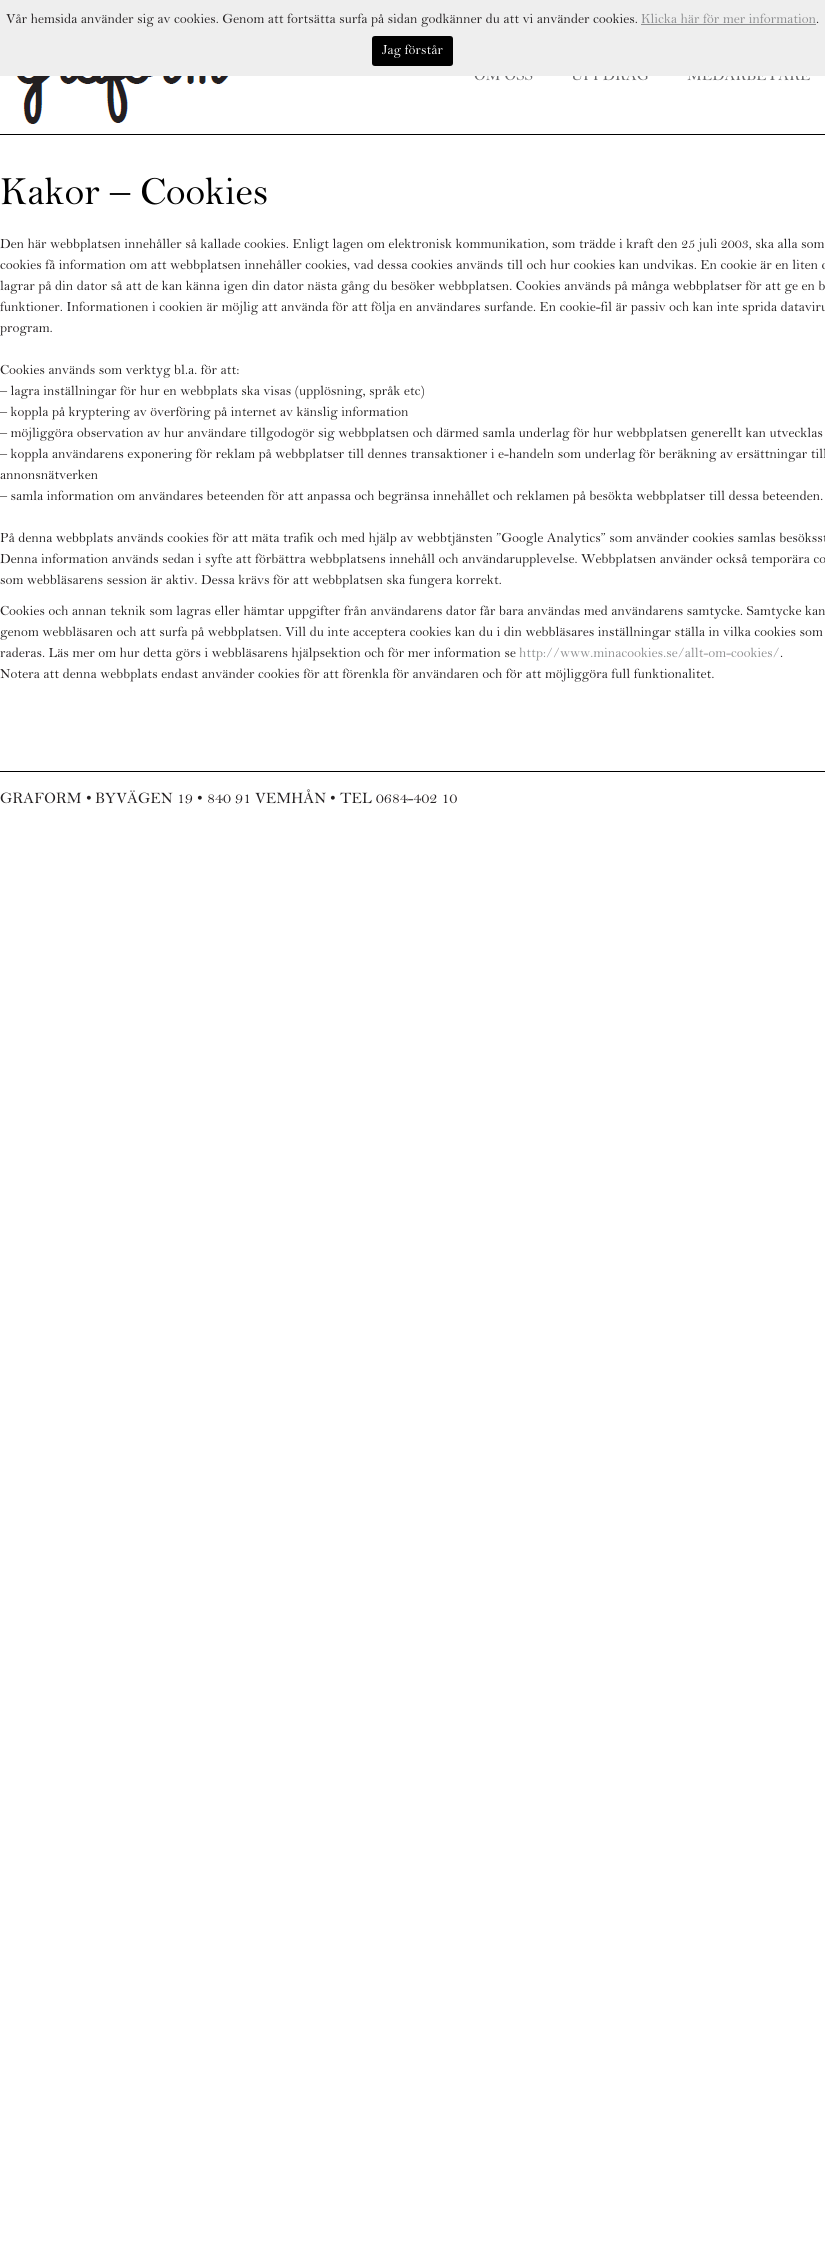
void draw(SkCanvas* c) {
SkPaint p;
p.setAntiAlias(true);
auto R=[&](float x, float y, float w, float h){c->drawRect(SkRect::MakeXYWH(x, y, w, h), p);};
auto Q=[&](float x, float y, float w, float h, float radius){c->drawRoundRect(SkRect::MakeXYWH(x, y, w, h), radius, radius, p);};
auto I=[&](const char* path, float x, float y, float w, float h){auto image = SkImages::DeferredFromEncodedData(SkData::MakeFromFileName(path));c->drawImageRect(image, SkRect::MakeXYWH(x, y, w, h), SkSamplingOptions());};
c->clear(0xffffffff);
p.setColor(0xffeeeeee);
R(0,0,825,76);
I("1.png",6,13,631,14);
I("2.png",641,13,175,11);
I("3.png",816,21,3,2);
p.setColor(0xff8c8d8f);
R(641,24,175,1);
p.setColor(0xff000000);
Q(372,36,81,30,3);
I("4.png",382,44,61,14);
R(0,134,825,1);
I("5.png",15,76,216,48);
I("6.png",474,76,59,5);
I("7.png",573,76,75,5);
I("8.png",687,76,123,5);
I("9.png",1,177,266,28);
I("10.png",0,238,824,14);
I("11.png",0,259,825,14);
I("12.png",0,280,825,14);
I("13.png",0,301,825,14);
I("14.png",0,326,52,10);
I("15.png",0,364,239,14);
I("16.png",0,385,424,14);
I("17.png",0,406,408,14);
I("18.png",0,427,823,14);
I("19.png",0,448,825,14);
I("20.png",0,469,98,11);
I("21.png",0,490,823,14);
I("22.png",0,532,825,14);
I("23.png",0,553,825,14);
I("24.png",0,574,501,14);
I("25.png",0,605,825,14);
I("26.png",0,626,823,14);
I("27.png",0,647,516,14);
I("28.png",519,647,260,14);
I("29.png",780,655,3,2);
I("30.png",0,668,714,14);
R(0,771,825,1);
I("31.png",0,792,82,12);
I("32.png",86,795,5,5);
I("33.png",95,790,98,14);
I("32.png",197,795,5,5);
I("34.png",208,789,118,15);
I("32.png",330,795,5,5);
I("35.png",340,792,117,12);
}
